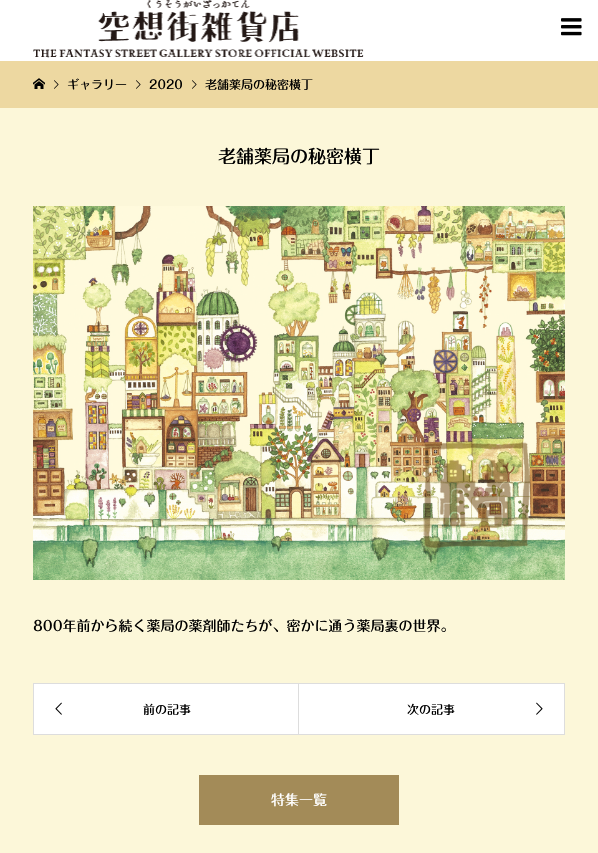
void draw(SkCanvas* c) {
SkPaint p;
p.setAntiAlias(true);
auto F=[&](const char* family, int weight, float size, bool italic = false){SkFontStyle style(weight, SkFontStyle::kNormal_Width,italic ? SkFontStyle::kItalic_Slant : SkFontStyle::kUpright_Slant);SkFont result(fontMgr->matchFamilyStyle(family, style), size);result.setSubpixel(true);return result;};
auto T=[&](const char* s, float x, float y, const SkFont& font){c->drawString(s, x, y, font, p);};
auto R=[&](float x, float y, float w, float h){c->drawRect(SkRect::MakeXYWH(x, y, w, h), p);};
auto I=[&](const char* path, float x, float y, float w, float h){auto image = SkImages::DeferredFromEncodedData(SkData::MakeFromFileName(path));c->drawImageRect(image, SkRect::MakeXYWH(x, y, w, h), SkSamplingOptions());};
c->clear(0xfffcf7d9);
p.setColor(0xffffffff);
R(0,0,598,61);
I("1.png",33,0,331,58);
I("2.png",561,18,21,18);
p.setColor(0xffedd8a1);
R(0,61,598,47);
I("3.png",33,78,12,11);
I("4.png",54,80,5,9);
auto f1 = F("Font",500,12);
p.setColor(0xff000000);
T("ギャラリー",67,89,f1);
I("4.png",136,80,5,9);
T("2020",149,89,f1);
I("4.png",192,80,5,9);
T("老舗薬局の秘密横丁",205,89,f1);
auto f2 = F("Font",500,18);
T("老舗薬局の秘密横丁",218,163,f2);
I("5.png",33,206,532,374);
auto f3 = F("Font",500,14);
T("800年前から続く薬局の薬剤師たちが、密かに通う薬局裏の世界。",33,631,f3);
p.setColor(0xffffffff);
c->drawRect(SkRect::MakeXYWH(33.5,683.5,265,51),p);
p.setStroke(true);
p.setStrokeWidth(1);
p.setColor(0xffdddddd);
c->drawRect(SkRect::MakeXYWH(33.5,683.5,265,51),p);
I("6.png",55,702,7,13);
p.setStroke(false);
p.setColor(0xff000000);
T("前の記事",143,714,f1);
p.setColor(0xffffffff);
R(299,684,265,50);
p.setColor(0xffdddddd);
R(299,683,266,1);
R(564,683,1,52);
R(299,734,266,1);
p.setColor(0xff000000);
T("次の記事",407,714,f1);
I("7.png",536,702,7,13);
p.setColor(0xffa38b58);
R(199,775,200,50);
p.setColor(0xffffffff);
T("特集一覧",271,805,f3);
}
